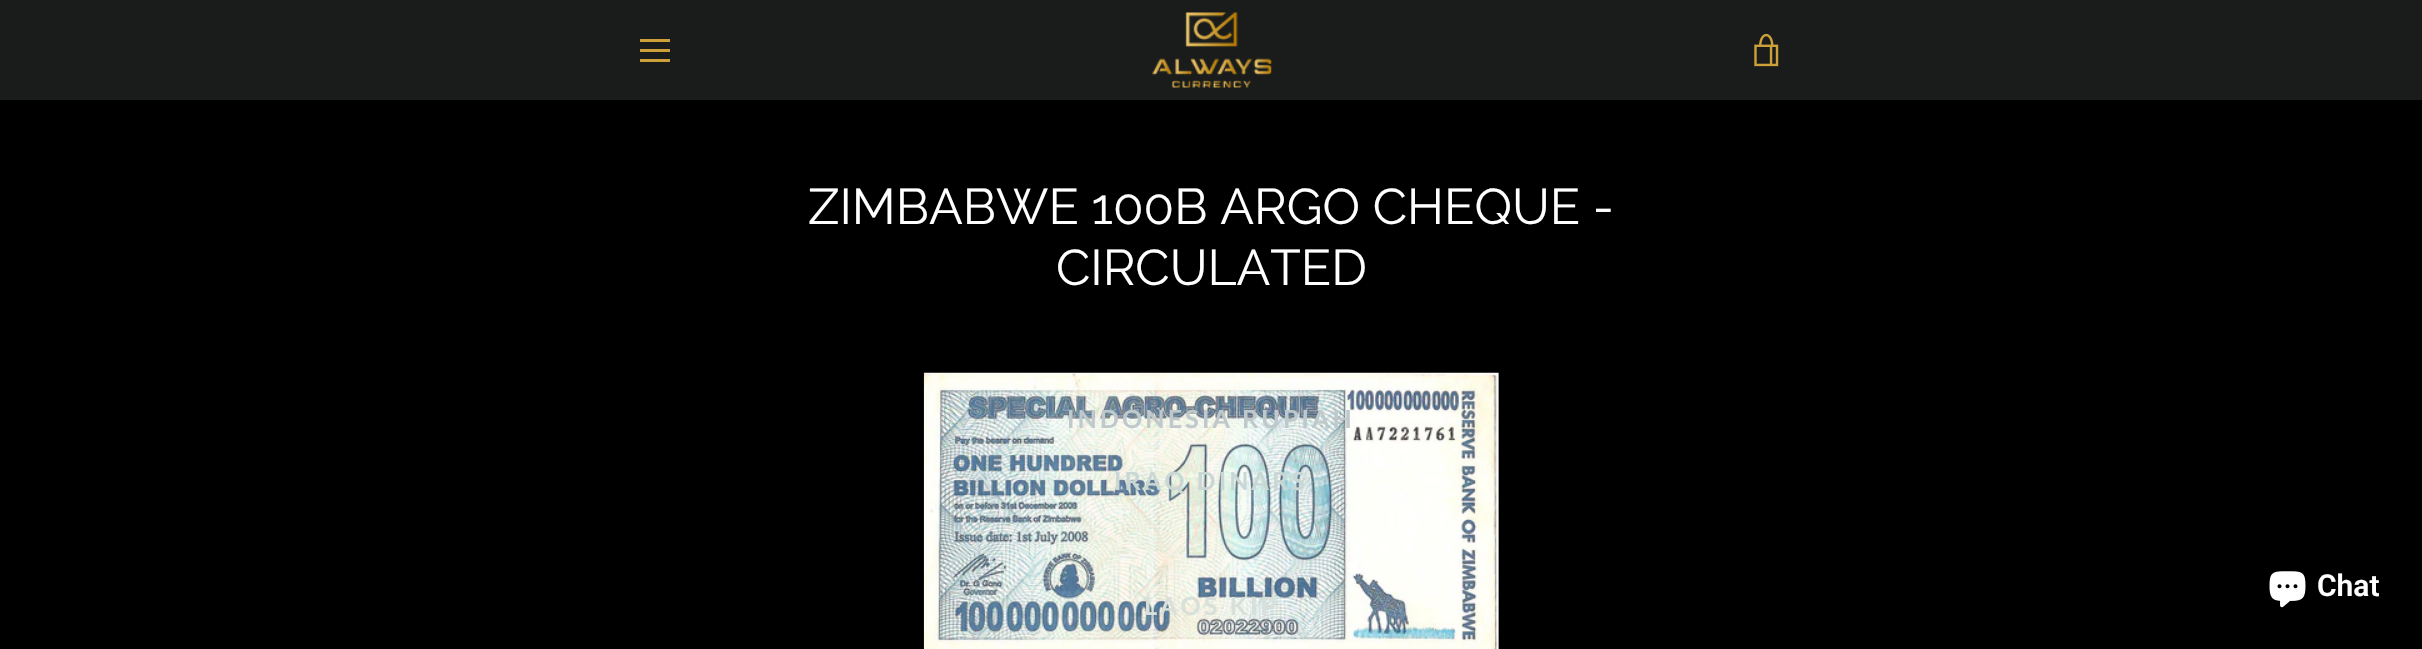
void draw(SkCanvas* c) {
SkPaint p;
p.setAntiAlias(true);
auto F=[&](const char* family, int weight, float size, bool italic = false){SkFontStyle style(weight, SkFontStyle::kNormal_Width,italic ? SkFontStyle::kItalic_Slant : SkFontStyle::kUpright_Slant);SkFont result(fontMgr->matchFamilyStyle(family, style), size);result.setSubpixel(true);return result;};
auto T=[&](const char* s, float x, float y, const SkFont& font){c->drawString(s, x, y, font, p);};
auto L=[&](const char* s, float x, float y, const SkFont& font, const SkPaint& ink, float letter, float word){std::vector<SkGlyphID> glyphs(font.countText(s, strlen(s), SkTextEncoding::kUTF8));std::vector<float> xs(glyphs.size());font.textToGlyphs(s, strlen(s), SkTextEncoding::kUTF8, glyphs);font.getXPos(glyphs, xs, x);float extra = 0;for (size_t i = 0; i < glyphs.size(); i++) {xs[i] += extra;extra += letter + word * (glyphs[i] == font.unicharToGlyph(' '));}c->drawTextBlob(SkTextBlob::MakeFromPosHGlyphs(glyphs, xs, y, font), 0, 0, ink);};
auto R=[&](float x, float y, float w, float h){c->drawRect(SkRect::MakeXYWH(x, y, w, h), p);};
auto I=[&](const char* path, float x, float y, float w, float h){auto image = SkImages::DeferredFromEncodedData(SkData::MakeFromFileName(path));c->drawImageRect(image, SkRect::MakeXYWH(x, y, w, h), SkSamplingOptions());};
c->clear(0xff000000);
auto f1 = F("Raleway",400,50);
p.setColor(0xffffffff);
T("ZIMBABWE 100B ARGO CHEQUE -",808,224,f1);
T("CIRCULATED",1056,285,f1);
p.setColor(0xff191c1b);
R(1498,373,1,276);
I("1.png",923,372,576,277);
R(0,0,2422,100);
I("2.png",1152,12,120,76);
I("3.png",1754,33,25,34);
p.setColor(0xffcda039);
R(640,39,30,3);
R(640,49,30,3);
R(640,59,30,3);
auto f2 = F("Lato",700,25);
p.setColor(0xffbfc9cb);
L("INDONESIA RUPIAH",1067,428,f2,p,3.1,0);
p.setColor(0xffcad8d5);
L("IRAQ DINARS",1114,490,f2,p,3.1,0);
p.setColor(0xffd9e0da);
L("LAOS KIP",1144,615,f2,p,3.1,0);
I("4.png",2269,571,37,37);
auto f3 = F("Roboto",600,30);
p.setColor(0xffffffff);
T("Chat",2317,596,f3);
}
